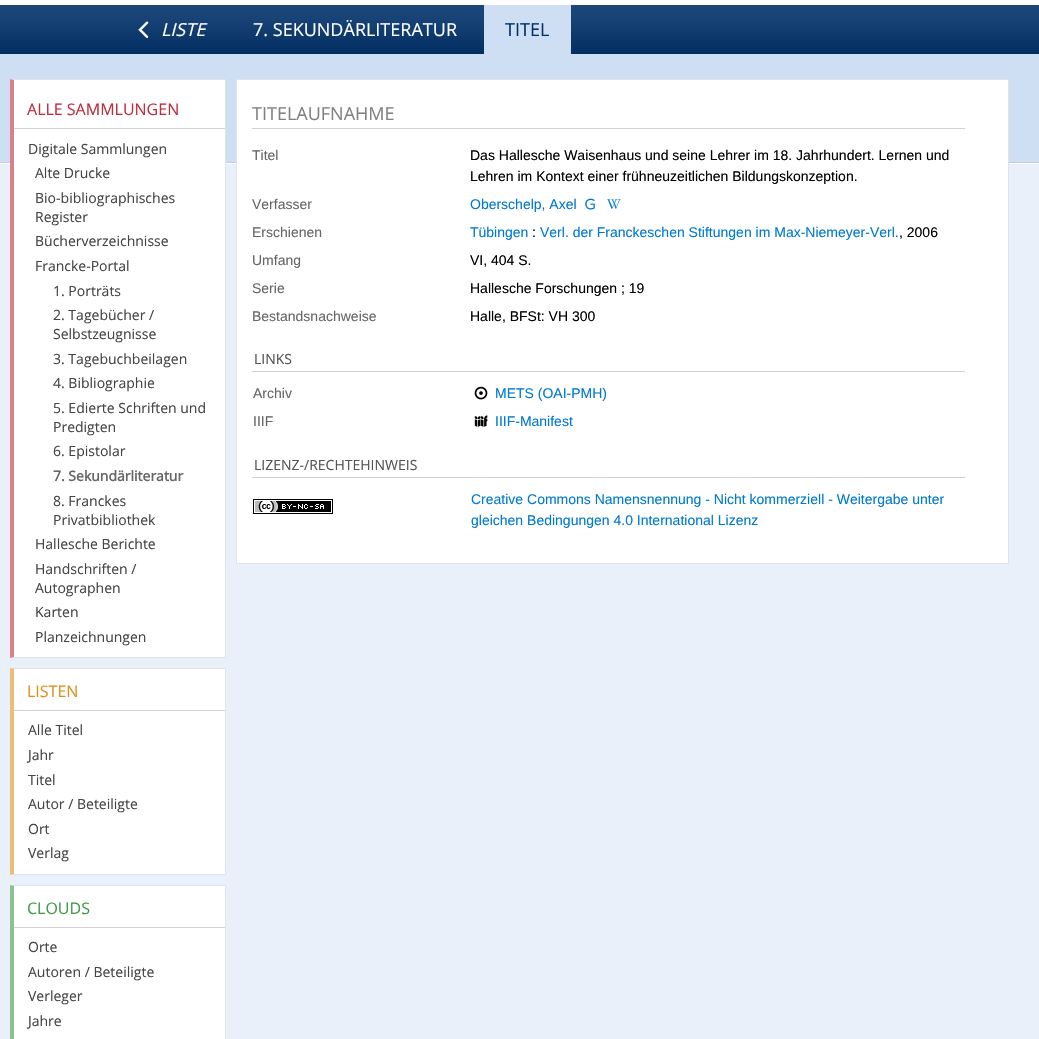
void draw(SkCanvas* c) {
SkPaint p;
p.setAntiAlias(true);
auto F=[&](const char* family, int weight, float size, bool italic = false){SkFontStyle style(weight, SkFontStyle::kNormal_Width,italic ? SkFontStyle::kItalic_Slant : SkFontStyle::kUpright_Slant);SkFont result(fontMgr->matchFamilyStyle(family, style), size);result.setSubpixel(true);return result;};
auto T=[&](const char* s, float x, float y, const SkFont& font){c->drawString(s, x, y, font, p);};
auto R=[&](float x, float y, float w, float h){c->drawRect(SkRect::MakeXYWH(x, y, w, h), p);};
auto I=[&](const char* path, float x, float y, float w, float h){auto image = SkImages::DeferredFromEncodedData(SkData::MakeFromFileName(path));c->drawImageRect(image, SkRect::MakeXYWH(x, y, w, h), SkSamplingOptions());};
auto P=[&](const char* data, bool evenOdd = false){SkPath result = *SkParsePath::FromSVGString(data);if (evenOdd) result.setFillType(SkPathFillType::kEvenOdd);return result;};
c->clear(0xffffffff);
I("1.png",0,5,1039,49);
I("2.png",138,21,11,17);
auto f1 = F("Open Sans",400,18,true);
p.setColor(0xffffffff);
T("LISTE",161,36,f1);
auto f2 = F("Open Sans",400,18);
T("7. SEKUNDÄRLITERATUR",253,36,f2);
p.setColor(0xffcedff4);
R(484,5,87,49);
p.setColor(0xff003069);
T("TITEL",505,36,f2);
p.setColor(0xffe9f0fa);
R(0,164,1039,875);
I("3.png",0,54,1039,110);
p.setColor(0xffffffff);
R(10,79,215,579);
p.setColor(0xffdde4ed);
c->drawPath(P("M10 79h216l-1 1h-211z"),p);
R(225,79,1,579);
c->drawPath(P("M226 658h-216l4-1h211z"),p);
p.setColor(0x99c12b3d);
c->drawPath(P("M10 658v-579l4 1v577z"),p);
p.setColor(0xffd3d1d1);
R(14,128,211,1);
auto f3 = F("Open Sans",400,16);
p.setColor(0xffc12b3d);
T("ALLE SAMMLUNGEN",27,115,f3);
auto f4 = F("Open Sans",400,14);
p.setColor(0xff444444);
T("Digitale Sammlungen",28,154,f4);
T("Alte Drucke",35,178,f4);
T("Bio-bibliographisches",35,203,f4);
T("Register",35,222,f4);
T("Bücherverzeichnisse",35,246,f4);
T("Francke-Portal",35,271,f4);
T("1. Porträts",53,296,f4);
T("2. Tagebücher /",53,320,f4);
T("Selbstzeugnisse",53,339,f4);
T("3. Tagebuchbeilagen",53,364,f4);
T("4. Bibliographie",53,388,f4);
T("5. Edierte Schriften und",53,413,f4);
T("Predigten",53,432,f4);
T("6. Epistolar",53,456,f4);
auto f5 = F("Open Sans",700,14);
p.setColor(0xff666666);
T("7. Sekundärliteratur",53,481,f5);
p.setColor(0xff444444);
T("8. Franckes",53,506,f4);
T("Privatbibliothek",53,525,f4);
T("Hallesche Berichte",35,549,f4);
T("Handschriften /",35,574,f4);
T("Autographen",35,593,f4);
T("Karten",35,617,f4);
T("Planzeichnungen",35,642,f4);
p.setColor(0xffffffff);
R(10,668,215,207);
p.setColor(0xffdde4ed);
c->drawPath(P("M10 668h216l-1 1h-211z"),p);
R(225,668,1,207);
c->drawPath(P("M226 875h-216l4-1h211z"),p);
p.setColor(0x99de9119);
c->drawPath(P("M10 875v-207l4 1v205z"),p);
p.setColor(0xffd3d1d1);
R(14,710,211,1);
p.setColor(0xffde9119);
T("LISTEN",27,697,f3);
p.setColor(0xff444444);
T("Alle Titel",28,735,f4);
T("Jahr",28,760,f4);
T("Titel",28,785,f4);
T("Autor / Beteiligte",28,809,f4);
T("Ort",28,834,f4);
T("Verlag",28,858,f4);
p.setColor(0xffffffff);
R(10,885,215,154);
p.setColor(0xffdde4ed);
c->drawPath(P("M10 885h216l-1 1h-211z"),p);
R(225,885,1,154);
p.setColor(0x99409a48);
c->drawPath(P("M10 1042v-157l4 1v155z"),p);
p.setColor(0xffd3d1d1);
R(14,927,211,1);
p.setColor(0xff409a48);
T("CLOUDS",27,914,f3);
p.setColor(0xff444444);
T("Orte",28,952,f4);
T("Autoren / Beteiligte",28,977,f4);
T("Verleger",28,1001,f4);
T("Jahre",28,1026,f4);
p.setColor(0xffffffff);
c->drawRect(SkRect::MakeXYWH(236.5,79.5,772,484),p);
p.setStroke(true);
p.setStrokeWidth(1);
p.setColor(0xffdde4ed);
c->drawRect(SkRect::MakeXYWH(236.5,79.5,772,484),p);
p.setStroke(false);
p.setColor(0xffd3d1d1);
R(252,128,713,1);
p.setColor(0xff818182);
T("TITELAUFNAHME",252,120,f2);
auto f6 = F("Liberation Sans",400,14);
p.setColor(0xff666666);
T("Titel",252,160,f6);
p.setColor(0xff000000);
T("Das Hallesche Waisenhaus und seine Lehrer im 18. Jahrhundert. Lernen und",470,160,f6);
T("Lehren im Kontext einer frühneuzeitlichen Bildungskonzeption.",470,181,f6);
p.setColor(0xff666666);
T("Verfasser",252,209,f6);
p.setColor(0xff007ad1);
T("Oberschelp, Axel",470,209,f6);
I("4.png",585,198,10,12);
I("5.png",607,199,14,10);
p.setColor(0xff666666);
T("Erschienen",252,237,f6);
p.setColor(0xff007ad1);
T("Tübingen",470,237,f6);
p.setColor(0xff000000);
T(":",532,237,f6);
p.setColor(0xff007ad1);
T("Verl. der Franckeschen Stiftungen im Max-Niemeyer-Verl.",540,237,f6);
p.setColor(0xff000000);
T(", 2006",899,237,f6);
p.setColor(0xff666666);
T("Umfang",252,265,f6);
p.setColor(0xff000000);
T("VI, 404 S.",470,265,f6);
p.setColor(0xff666666);
T("Serie",252,293,f6);
p.setColor(0xff000000);
T("Hallesche Forschungen ; 19",470,293,f6);
p.setColor(0xff666666);
T("Bestandsnachweise",252,321,f6);
p.setColor(0xff000000);
T("Halle, BFSt: VH 300",470,321,f6);
p.setColor(0xffd3d1d1);
R(252,371,713,1);
p.setColor(0xff555555);
T("LINKS",254,364,f4);
p.setColor(0xff666666);
T("Archiv",253,398,f6);
I("6.png",474,386,14,14);
p.setColor(0xff007ad1);
T("METS (OAI-PMH)",495,398,f6);
p.setColor(0xff666666);
T("IIIF",253,426,f6);
I("7.png",474,415,14,12);
p.setColor(0xff007ad1);
T("IIIF-Manifest",495,426,f6);
p.setColor(0xffd3d1d1);
R(252,477,713,1);
p.setColor(0xff555555);
T("LIZENZ-/RECHTEHINWEIS",254,470,f4);
I("8.png",253,499,80,15);
p.setColor(0xff007ad1);
T("Creative Commons Namensnennung - Nicht kommerziell - Weitergabe unter",471,504,f6);
T("gleichen Bedingungen 4.0 International Lizenz",471,525,f6);
}
